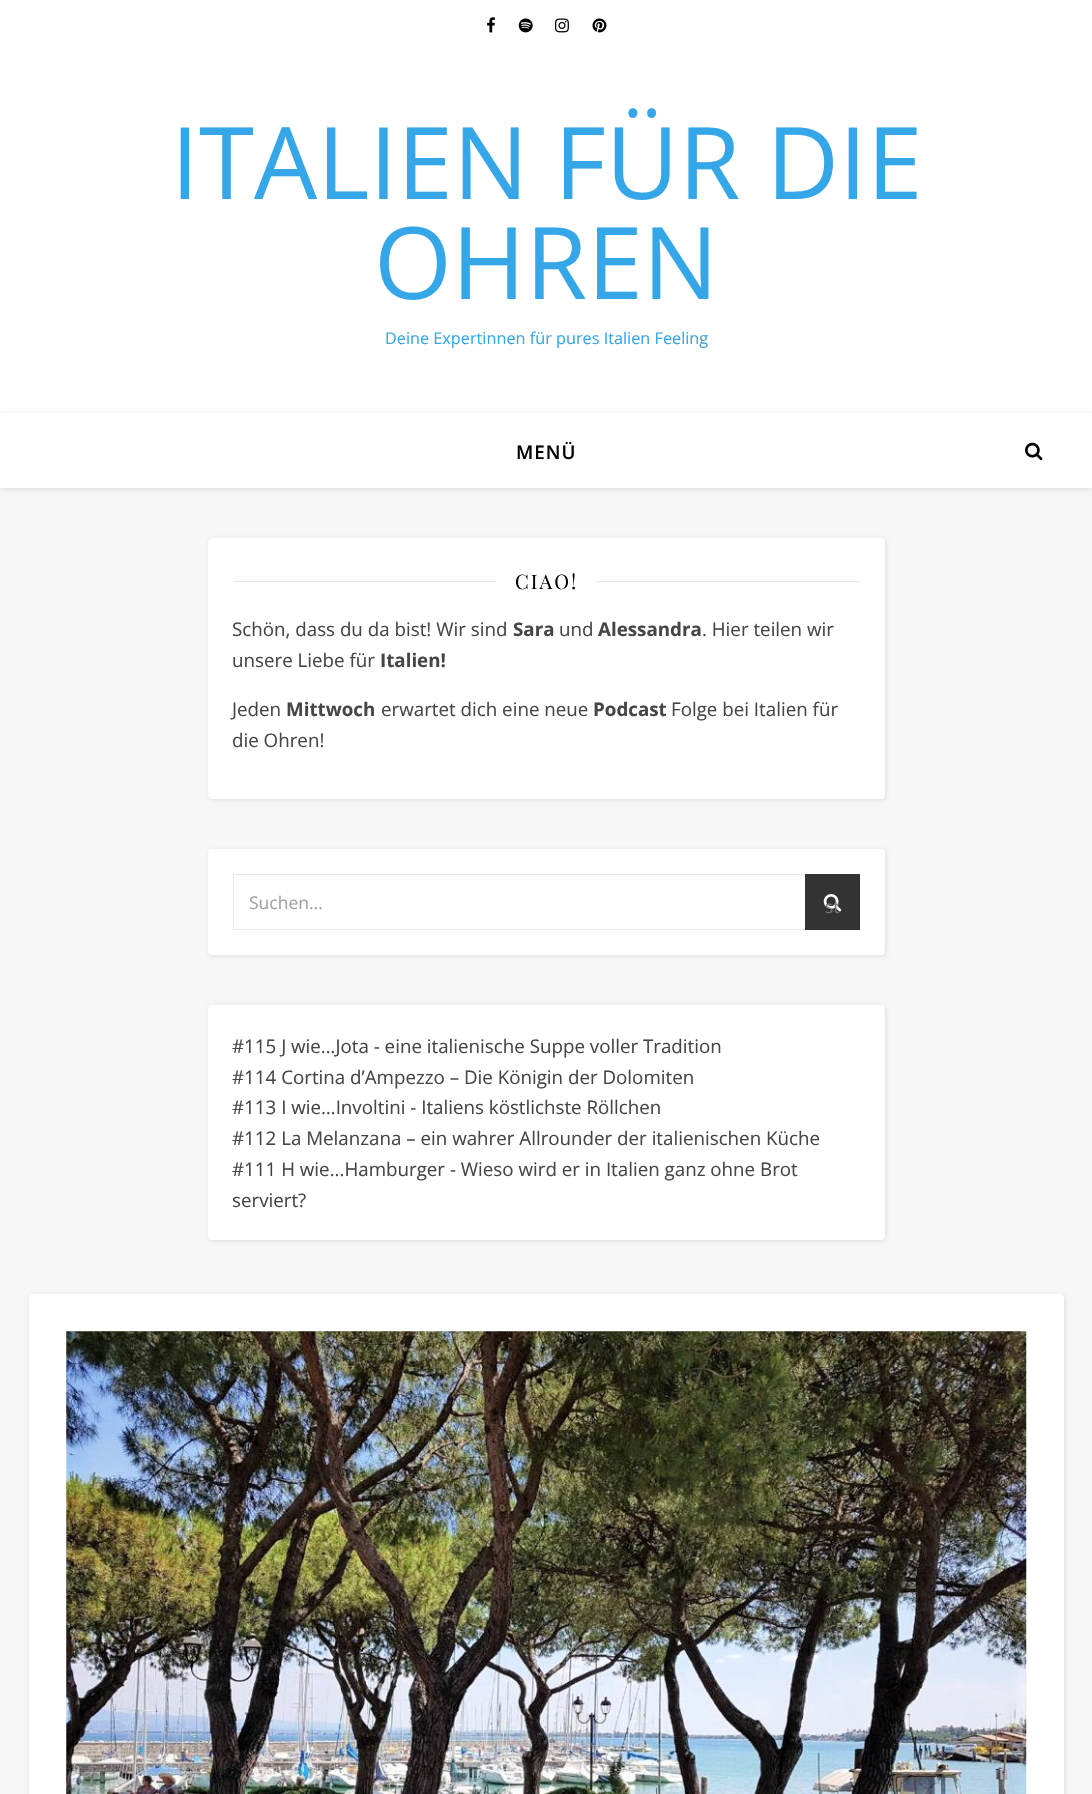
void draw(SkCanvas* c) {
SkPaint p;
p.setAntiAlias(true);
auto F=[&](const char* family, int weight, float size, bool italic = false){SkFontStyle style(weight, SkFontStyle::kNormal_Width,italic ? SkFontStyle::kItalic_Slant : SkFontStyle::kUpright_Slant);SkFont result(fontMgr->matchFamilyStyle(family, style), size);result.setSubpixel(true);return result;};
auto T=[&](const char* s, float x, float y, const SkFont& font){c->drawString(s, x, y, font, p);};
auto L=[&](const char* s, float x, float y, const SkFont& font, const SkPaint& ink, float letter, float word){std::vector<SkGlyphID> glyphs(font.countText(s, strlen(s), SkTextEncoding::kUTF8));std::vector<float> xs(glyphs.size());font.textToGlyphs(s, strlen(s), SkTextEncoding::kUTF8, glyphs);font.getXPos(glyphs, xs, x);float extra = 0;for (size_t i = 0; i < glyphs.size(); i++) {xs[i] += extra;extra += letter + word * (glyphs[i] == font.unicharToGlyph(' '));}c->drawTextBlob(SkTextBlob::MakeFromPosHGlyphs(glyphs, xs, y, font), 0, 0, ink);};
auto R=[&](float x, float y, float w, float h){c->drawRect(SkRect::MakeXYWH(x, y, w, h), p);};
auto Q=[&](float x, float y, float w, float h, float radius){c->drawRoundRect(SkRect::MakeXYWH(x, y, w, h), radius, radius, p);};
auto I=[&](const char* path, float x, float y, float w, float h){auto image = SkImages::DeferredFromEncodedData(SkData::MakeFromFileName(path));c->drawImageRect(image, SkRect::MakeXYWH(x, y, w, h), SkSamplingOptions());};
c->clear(0xfff7f7f7);
p.setColor(0xffffffff);
R(0,0,1092,413);
I("1.png",487,17,8,16);
I("2.png",518,18,15,15);
I("3.png",555,18,14,15);
I("4.png",592,18,15,15);
auto f1 = F("Open Sans",400,100);
p.setColor(0xff35a6e8);
T("ITALIEN FÜR DIE",171,199,f1);
T("OHREN",374,299,f1);
auto f2 = F("Open Sans",400,16.25);
T("Deine Expertinnen für pures Italien Feeling",385,344,f2);
p.setColor(0x1a000000);
p.setMaskFilter(SkMaskFilter::MakeBlur(kNormal_SkBlurStyle, 3));
c->drawRect(SkRect::MakeXYWH(0,414,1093,75),p);
p.setMaskFilter(nullptr);
p.setColor(0xffffffff);
R(0,413,1092,75);
auto f3 = F("Open Sans",600,18.75);
p.setColor(0xff030303);
L("MENÜ",516,459,f3,p,1,0);
I("5.png",1025,442,18,19);
p.setColor(0x1a000000);
p.setMaskFilter(SkMaskFilter::MakeBlur(kNormal_SkBlurStyle, 2));
c->drawRoundRect(SkRect::MakeXYWH(209,539,677,261),4,4,p);
p.setMaskFilter(nullptr);
p.setColor(0xffffffff);
Q(208,538,677,261,4);
p.setColor(0xffe8e8e8);
R(233,581,263,1);
auto f4 = F("Playfair Display",400,20);
p.setColor(0xff030303);
L("CIAO!",515,589,f4,p,2,0);
p.setColor(0xffe8e8e8);
R(596,581,264,1);
auto f5 = F("Open Sans",400,18.75);
p.setColor(0xff464646);
T("Schön, dass du da bist! Wir sind",232,636,f5);
auto f6 = F("Open Sans",700,18.75);
T("Sara",513,636,f6);
T("und",559,636,f5);
T("Alessandra",598,636,f6);
T(". Hier teilen wir",702,636,f5);
T("unsere Liebe für",232,667,f5);
T("Italien!",380,667,f6);
T("Jeden",232,716,f5);
T("Mittwoch",286,716,f6);
T("erwartet dich eine neue",381,716,f5);
T("Podcast",593,716,f6);
T("Folge bei Italien für",671,716,f5);
T("die Ohren!",232,747,f5);
p.setColor(0x1a000000);
p.setMaskFilter(SkMaskFilter::MakeBlur(kNormal_SkBlurStyle, 2));
c->drawRoundRect(SkRect::MakeXYWH(209,850,677,106),4,4,p);
p.setMaskFilter(nullptr);
p.setColor(0xffffffff);
Q(208,849,677,106,4);
p.setStroke(true);
p.setStrokeWidth(1);
p.setColor(0xffe8e8e8);
c->drawRect(SkRect::MakeXYWH(233.5,874.5,626,55),p);
auto f7 = F("Open Sans",400,17.5);
p.setStroke(false);
p.setColor(0xffa1a1a1);
T("Suchen...",249,909,f7);
p.setColor(0xff333333);
R(805,874,55,56);
I("6.png",823,894,19,18);
p.setColor(0xff757575);
T("st",825,913,f7);
p.setColor(0x1a000000);
p.setMaskFilter(SkMaskFilter::MakeBlur(kNormal_SkBlurStyle, 2));
c->drawRoundRect(SkRect::MakeXYWH(209,1006,677,235),4,4,p);
p.setMaskFilter(nullptr);
p.setColor(0xffffffff);
Q(208,1005,677,235,4);
p.setColor(0xff464646);
T("#115 J wie…Jota - eine italienische Suppe voller Tradition",232,1053,f5);
T("#114 Cortina d’Ampezzo – Die Königin der Dolomiten",232,1084,f5);
T("#113 I wie…Involtini - Italiens köstlichste Röllchen",232,1114,f5);
T("#112 La Melanzana – ein wahrer Allrounder der italienischen Küche",232,1145,f5);
T("#111 H wie...Hamburger - Wieso wird er in Italien ganz ohne Brot",232,1176,f5);
T("serviert?",232,1207,f5);
p.setColor(0x1a000000);
p.setMaskFilter(SkMaskFilter::MakeBlur(kNormal_SkBlurStyle, 2));
c->drawRoundRect(SkRect::MakeXYWH(30,1295,1035,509),4,4,p);
p.setMaskFilter(nullptr);
p.setColor(0xffffffff);
Q(29,1294,1035,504,4);
I("7.png",66,1331,961,463);
}
